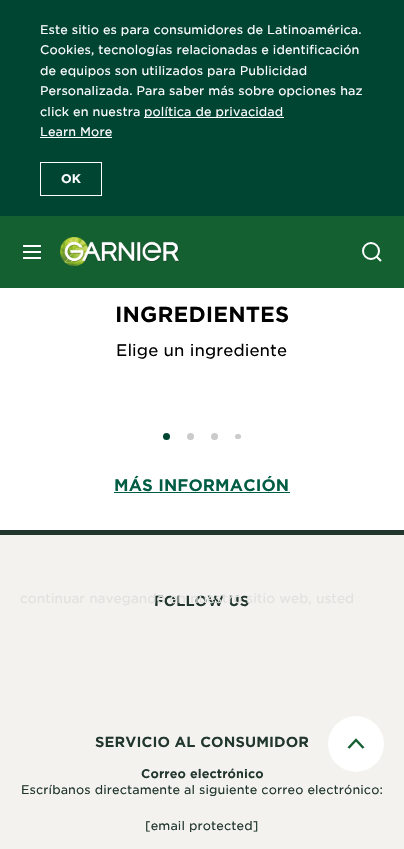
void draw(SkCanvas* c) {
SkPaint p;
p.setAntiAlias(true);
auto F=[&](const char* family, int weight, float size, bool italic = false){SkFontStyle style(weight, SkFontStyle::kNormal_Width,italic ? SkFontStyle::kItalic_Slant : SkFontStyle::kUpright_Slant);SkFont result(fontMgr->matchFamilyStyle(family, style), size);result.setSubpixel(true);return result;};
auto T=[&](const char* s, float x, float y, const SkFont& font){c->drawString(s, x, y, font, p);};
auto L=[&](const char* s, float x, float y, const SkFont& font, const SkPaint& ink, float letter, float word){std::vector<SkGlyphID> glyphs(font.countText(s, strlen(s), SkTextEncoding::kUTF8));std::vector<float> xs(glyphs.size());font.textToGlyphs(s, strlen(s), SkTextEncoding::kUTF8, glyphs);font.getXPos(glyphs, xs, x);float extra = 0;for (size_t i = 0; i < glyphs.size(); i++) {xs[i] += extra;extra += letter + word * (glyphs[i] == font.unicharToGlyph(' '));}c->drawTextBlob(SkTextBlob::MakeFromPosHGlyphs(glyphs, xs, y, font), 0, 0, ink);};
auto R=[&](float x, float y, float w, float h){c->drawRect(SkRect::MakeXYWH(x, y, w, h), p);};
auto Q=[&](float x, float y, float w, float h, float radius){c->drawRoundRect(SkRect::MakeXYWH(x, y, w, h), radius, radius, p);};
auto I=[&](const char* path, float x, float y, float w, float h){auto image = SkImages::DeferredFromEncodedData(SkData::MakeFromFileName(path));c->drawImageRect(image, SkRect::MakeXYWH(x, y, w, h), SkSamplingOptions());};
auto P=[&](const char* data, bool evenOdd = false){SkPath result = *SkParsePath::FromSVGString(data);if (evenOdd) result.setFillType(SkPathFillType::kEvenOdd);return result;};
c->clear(0xffffffff);
p.setColor(0xff004532);
R(0,0,404,216);
auto f1 = F("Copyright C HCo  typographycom",300,12);
p.setColor(0xffffffff);
L("Este sitio es para consumidores de Latinoamérica.",40,34,f1,p,.1,0);
L("Cookies, tecnologías relacionadas e identificación",40,54,f1,p,.1,0);
L("de equipos son utilizados para Publicidad",40,75,f1,p,.1,0);
L("Personalizada. Para saber más sobre opciones haz",40,95,f1,p,.1,0);
L("click en nuestra",40,116,f1,p,.1,0);
R(144,117,140,1);
L("política de privacidad",144,116,f1,p,.1,0);
L("Learn More",40,136,f1,p,.1,0);
R(40,137,72,1);
p.setStroke(true);
p.setStrokeWidth(1);
c->drawRect(SkRect::MakeXYWH(40.5,162.5,61,33),p);
auto f2 = F("Copyright C HCo  typographycom",400,12);
p.setStroke(false);
T("OK",61,183,f2);
p.setColor(0xff156031);
R(0,216,404,72);
p.setColor(0xffffffff);
R(23,245,18,2);
R(23,251,18,2);
R(23,257,18,2);
I("1.png",60,237,120,29);
p.setStroke(true);
p.setStrokeWidth(2);
c->drawCircle(371,251,8,p);
p.setStrokeJoin(SkPaint::kRound_Join);
c->drawPath(P("M376.5 256.5l4.5 4.5"),p);
auto f3 = F("Copyright C HCo  typographycom",400,21);
p.setStroke(false);
p.setColor(0xff000000);
L("INGREDIENTES",115,322,f3,p,.1,0);
auto f4 = F("Copyright C HCo  typographycom",300,16);
L("Elige un ingrediente",116,356,f4,p,.1,0);
p.setColor(0xff004532);
c->drawCircle(166.5,436.5,3.5,p);
p.setColor(0xffcbcbcb);
c->drawCircle(190.5,436.5,3.5,p);
c->drawCircle(214.5,436.5,3.5,p);
Q(235,434,6,5,2.5);
auto f5 = F("Copyright C HCo  typographycom",400,16);
p.setColor(0xff005c43);
L("MÁS INFORMACIÓN",114,491,f5,p,.1,0);
R(114,492,176,1);
p.setColor(0xfff3f2ef);
R(0,535,404,314);
p.setColor(0xff21362c);
R(0,530,404,5);
auto f6 = F("Copyright C HCo  typographycom",400,14);
L("FOLLOW US",154,606,f6,p,.1,0);
L("SERVICIO AL CONSUMIDOR",95,747,f6,p,.1,0);
L("Correo electrónico",141,778,f2,p,.1,0);
L("Escríbanos directamente al siguiente correo electrónico:",21,794,f1,p,.1,0);
L("[email protected]",145,830,f1,p,.1,0);
p.setColor(0xffffffff);
c->drawCircle(356,744,28,p);
p.setStroke(true);
p.setStrokeWidth(2.5);
p.setStrokeJoin(SkPaint::kMiter_Join);
p.setColor(0xff156031);
c->drawPath(P("M363.5 748l-7.5-8l-7.5 8"),p);
auto f7 = F("Copyright C HCo  typographycom",300,13);
p.setStroke(false);
p.setColor(0xffe1e2df);
T("continuar navegando en nuestro sitio web, usted",20,603,f7);
}
